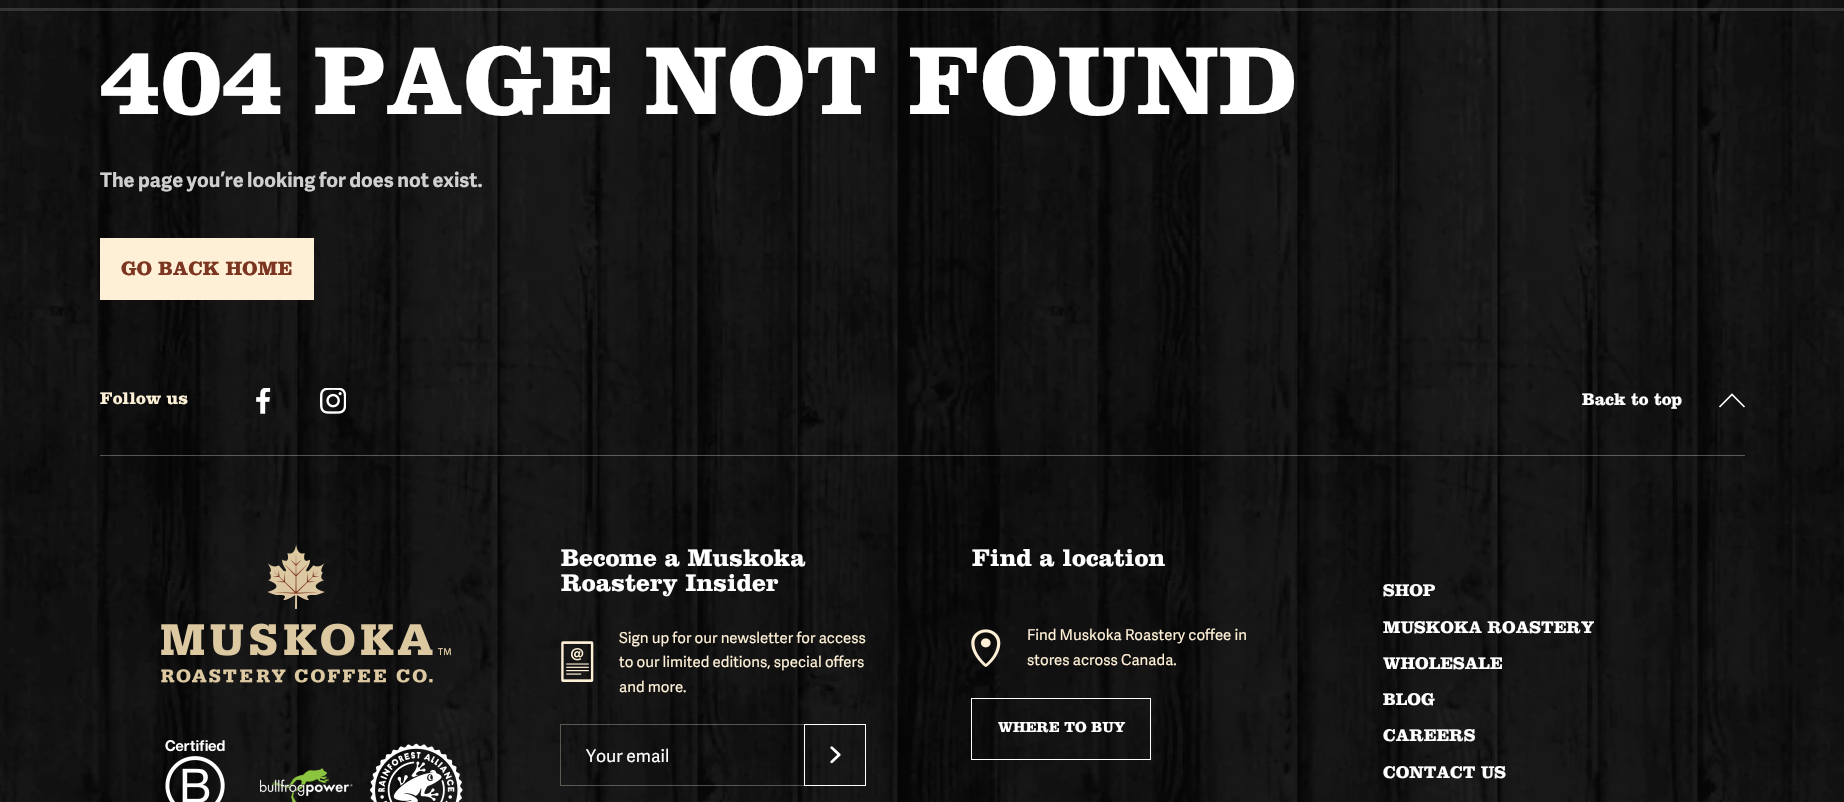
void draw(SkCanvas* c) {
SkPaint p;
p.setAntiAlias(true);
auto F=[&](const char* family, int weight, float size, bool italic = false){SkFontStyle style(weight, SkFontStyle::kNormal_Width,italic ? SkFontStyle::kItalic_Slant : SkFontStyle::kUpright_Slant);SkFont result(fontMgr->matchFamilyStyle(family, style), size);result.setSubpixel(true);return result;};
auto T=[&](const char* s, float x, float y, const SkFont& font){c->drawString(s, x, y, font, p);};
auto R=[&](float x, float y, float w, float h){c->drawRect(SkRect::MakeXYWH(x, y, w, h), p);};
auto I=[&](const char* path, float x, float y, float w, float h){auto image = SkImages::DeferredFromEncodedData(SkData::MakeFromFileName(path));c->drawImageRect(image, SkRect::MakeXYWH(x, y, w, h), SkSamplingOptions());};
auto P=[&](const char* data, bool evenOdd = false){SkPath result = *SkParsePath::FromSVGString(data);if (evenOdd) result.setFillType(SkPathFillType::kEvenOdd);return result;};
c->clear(0xffffffff);
I("1.png",0,0,1844,802);
p.setColor(0x66666666);
R(0,8,1844,3);
auto f1 = F("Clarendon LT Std",700,100);
p.setColor(0xffffffff);
T("404 PAGE NOT FOUND",100,114,f1);
auto f2 = F("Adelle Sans",700,20);
p.setColor(0xffd0d0d0);
T("The page you’re looking for does not exist.",100,187,f2);
p.setColor(0xfffef0d6);
R(100,238,214,62);
auto f3 = F("Clarendon LT Std",700,20);
p.setColor(0xff7c3520);
T("GO BACK HOME",121,275,f3);
p.setColor(0x4dffffff);
R(100,455,1645,1);
auto f4 = F("Clarendon LT Std",700,17.5);
p.setColor(0xfffef0d6);
T("Follow us",100,404,f4);
I("2.png",256,388,15,26);
I("3.png",320,388,26,26);
p.setColor(0xffffffff);
T("Back to top",1582,405,f4);
p.setStroke(true);
p.setStrokeWidth(1.6);
c->drawPath(P("M1744.5 407l-12.5-12.5l-12.5 12.5"),p);
I("4.png",161,544,290,139);
I("5.png",165,740,60,62);
I("6.png",260,768,93,34);
I("7.png",370,743,93,59);
auto f5 = F("Clarendon LT Std",700,25);
p.setStroke(false);
T("Become a Muskoka",561,566,f5);
T("Roastery Insider",561,591,f5);
I("8.png",561,641,33,41);
auto f6 = F("Adelle Sans",400,15);
p.setColor(0xfffef0d6);
T("Sign up for our newsletter for access",619,643,f6);
T("to our limited editions, special offers",619,667,f6);
T("and more.",619,692,f6);
p.setStroke(true);
p.setStrokeWidth(1);
p.setColor(0x4dfef0d6);
c->drawRect(SkRect::MakeXYWH(560.5,724.5,244,61),p);
auto f7 = F("Adelle Sans",400,17.5);
p.setStroke(false);
p.setColor(0xffffffff);
T("Your email",586,762,f7);
I("9.png",830,746,11,18);
p.setStroke(true);
c->drawRect(SkRect::MakeXYWH(804.5,724.5,61,61),p);
p.setStroke(false);
T("Find a location",972,566,f5);
I("10.png",971,629,30,38);
p.setColor(0xfffef0d6);
T("Find Muskoka Roastery coffee in",1027,640,f6);
T("stores across Canada.",1027,665,f6);
p.setStroke(true);
p.setColor(0xffffffff);
c->drawRect(SkRect::MakeXYWH(971.5,698.5,179,61),p);
auto f8 = F("Clarendon LT Std",700,15);
p.setStroke(false);
T("WHERE TO BUY",998,732,f8);
T("SHOP",1383,596,f4);
T("MUSKOKA ROASTERY",1383,633,f4);
T("WHOLESALE",1383,669,f4);
T("BLOG",1383,705,f4);
T("CAREERS",1383,741,f4);
T("CONTACT US",1383,778,f4);
}
